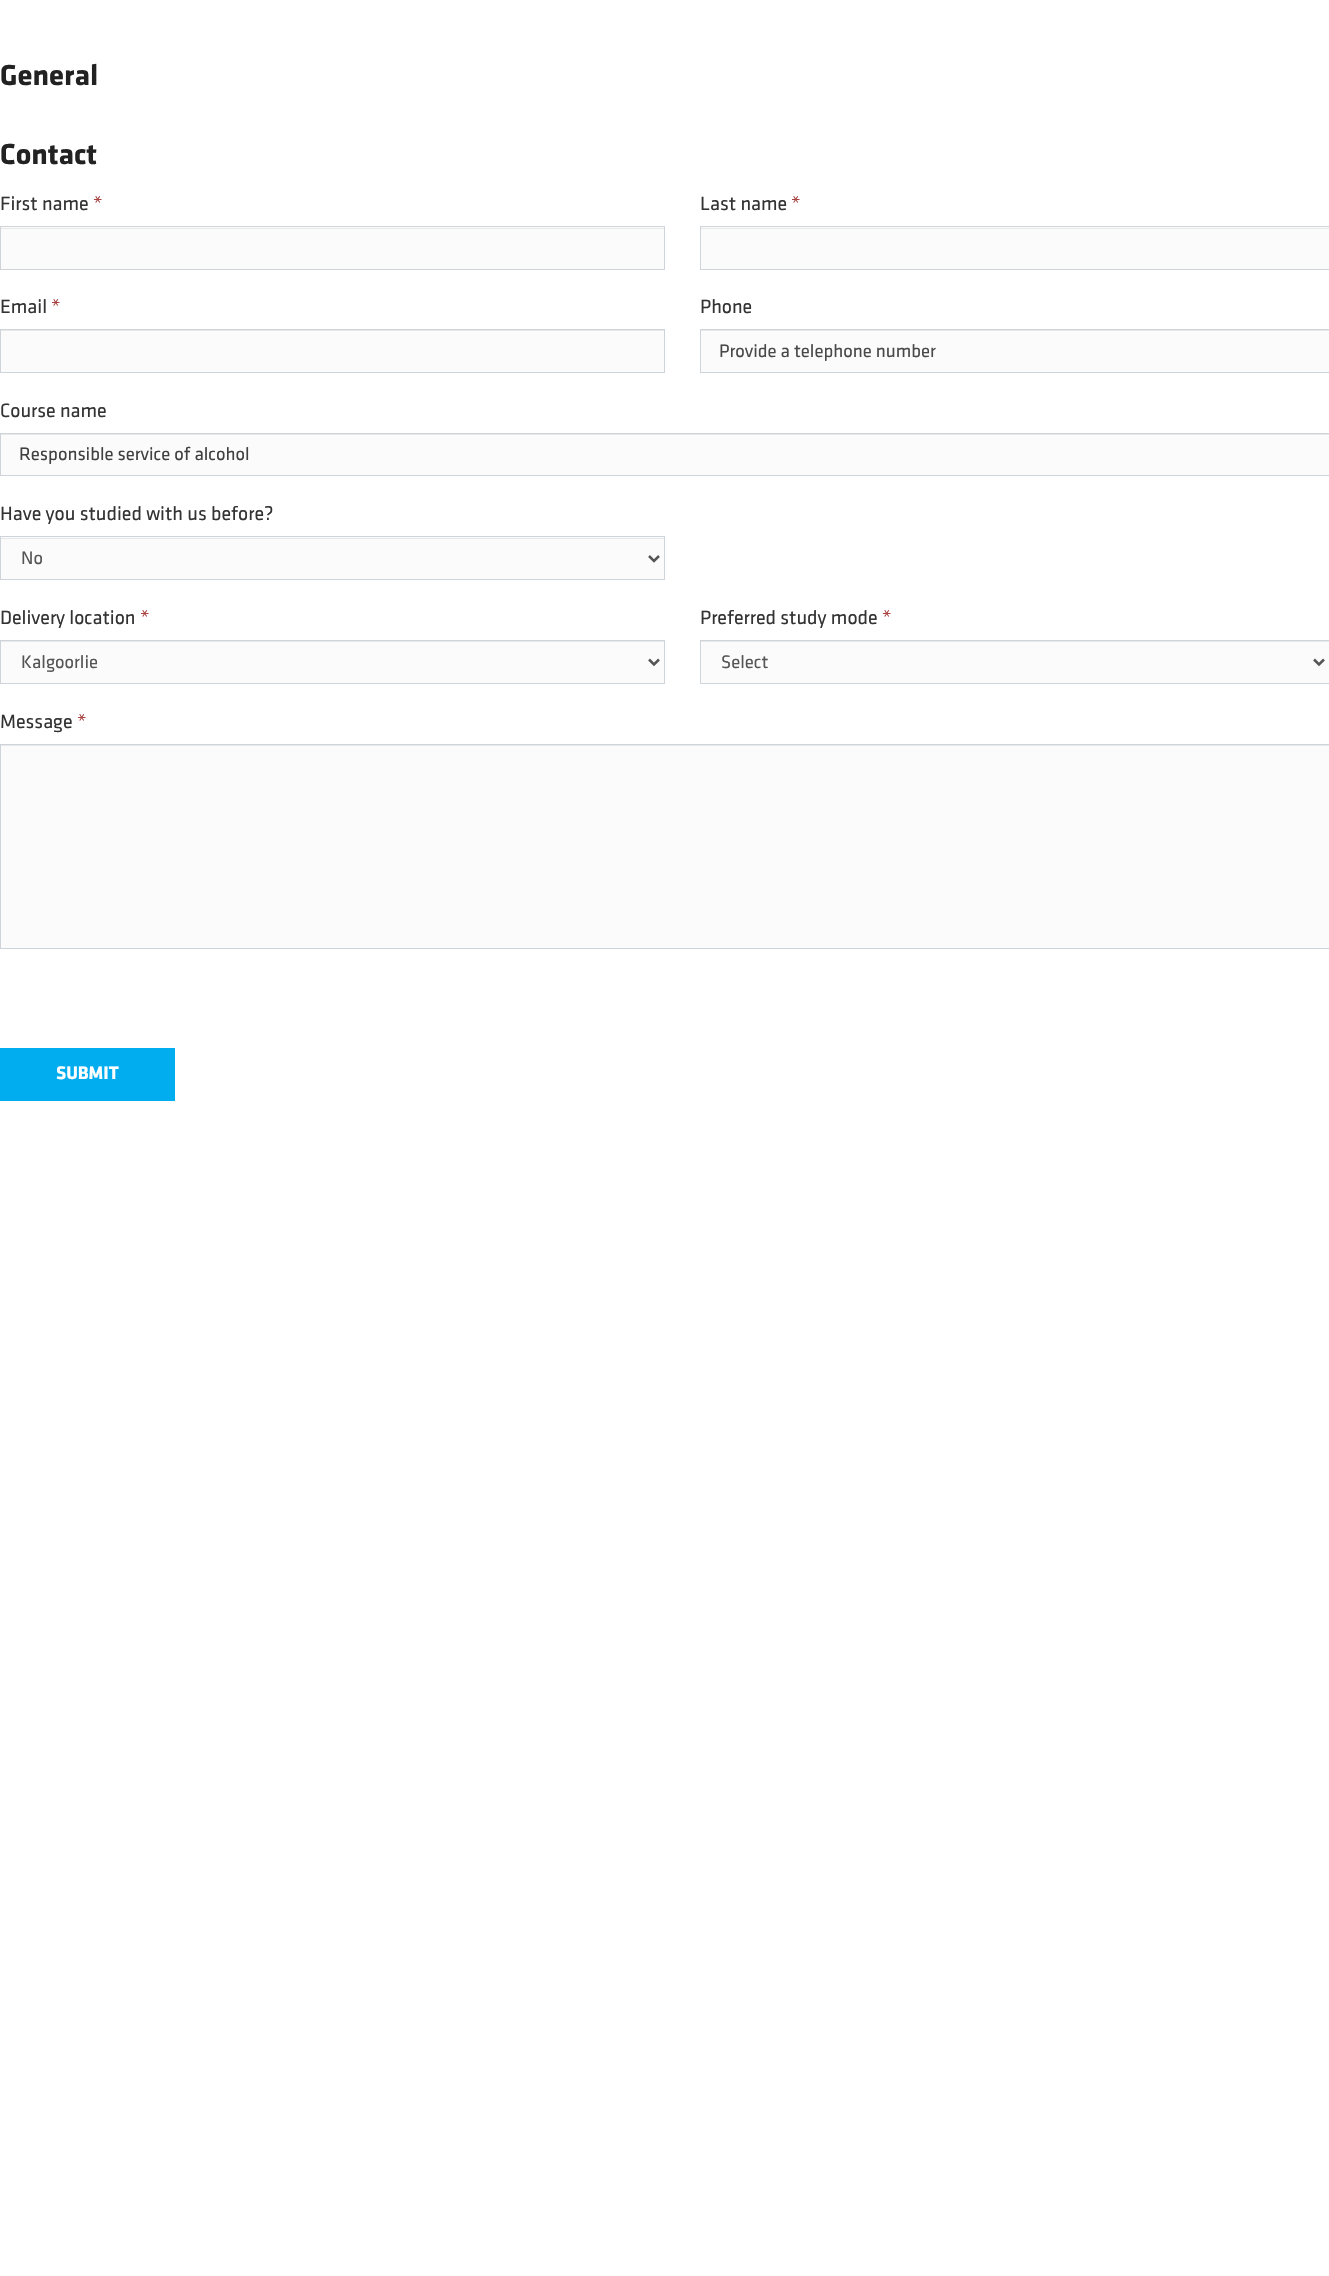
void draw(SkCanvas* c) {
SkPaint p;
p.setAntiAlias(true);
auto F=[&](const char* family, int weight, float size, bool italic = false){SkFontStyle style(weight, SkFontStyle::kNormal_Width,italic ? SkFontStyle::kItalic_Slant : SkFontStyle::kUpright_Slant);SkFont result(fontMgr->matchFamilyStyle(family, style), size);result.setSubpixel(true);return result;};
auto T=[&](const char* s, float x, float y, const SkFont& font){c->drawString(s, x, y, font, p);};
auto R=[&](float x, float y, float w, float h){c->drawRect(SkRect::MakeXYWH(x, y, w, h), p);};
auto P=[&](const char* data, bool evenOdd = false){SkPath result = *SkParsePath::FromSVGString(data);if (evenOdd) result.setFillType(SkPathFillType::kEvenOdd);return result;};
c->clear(0xffffffff);
auto f1 = F("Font",700,30);
p.setColor(0xff232222);
T("General",0,85,f1);
T("Contact",0,164,f1);
auto f2 = F("Font",400,20);
p.setColor(0xff333333);
T("First name",0,210,f2);
p.setColor(0xffa94442);
T("*",93,210,f2);
p.setColor(0xfffbfbfb);
R(1,227,663,42);
p.setColor(0xffe8e8e8);
R(1,228,663,1);
p.setStroke(true);
p.setStrokeWidth(1);
p.setColor(0xffced4da);
c->drawRect(SkRect::MakeXYWH(.5,226.5,664,43),p);
p.setStroke(false);
p.setColor(0xff333333);
T("Last name",700,210,f2);
p.setColor(0xffa94442);
T("*",791,210,f2);
p.setColor(0xfffbfbfb);
R(701,227,628,42);
p.setColor(0xffe8e8e8);
R(701,228,628,1);
p.setStroke(true);
p.setColor(0xffced4da);
c->drawRect(SkRect::MakeXYWH(700.5,226.5,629,43),p);
p.setStroke(false);
p.setColor(0xff333333);
T("Email",0,313,f2);
p.setColor(0xffa94442);
T("*",51,313,f2);
p.setColor(0xfffbfbfb);
R(1,331,663,41);
p.setColor(0xffe8e8e8);
R(1,330,663,1);
p.setStroke(true);
p.setColor(0xffced4da);
c->drawRect(SkRect::MakeXYWH(.5,329.5,664,43),p);
p.setStroke(false);
p.setColor(0xff333333);
T("Phone",700,313,f2);
p.setColor(0xfffbfbfb);
R(701,331,628,41);
p.setColor(0xffe8e8e8);
R(701,330,628,1);
p.setStroke(true);
p.setColor(0xffced4da);
c->drawRect(SkRect::MakeXYWH(700.5,329.5,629,43),p);
auto f3 = F("Font",400,18.75);
p.setStroke(false);
p.setColor(0xff4a4949);
T("Provide a telephone number",719,357,f3);
p.setColor(0xff333333);
T("Course name",0,417,f2);
p.setColor(0xfffbfbfb);
R(1,435,1328,40);
p.setColor(0xffe8e8e8);
R(1,434,1328,1);
p.setStroke(true);
p.setColor(0xffced4da);
c->drawRect(SkRect::MakeXYWH(.5,433.5,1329,42),p);
p.setStroke(false);
p.setColor(0xff404041);
T("Responsible service of alcohol",19,460,f3);
p.setColor(0xff333333);
T("Have you studied with us before?",0,520,f2);
p.setColor(0xfffbfbfb);
R(1,537,663,42);
p.setColor(0xffe8e8e8);
R(1,538,663,1);
p.setStroke(true);
p.setColor(0xffced4da);
c->drawRect(SkRect::MakeXYWH(.5,536.5,664,43),p);
p.setStrokeWidth(2.5);
p.setColor(0xff555555);
c->drawPath(P("M649 556l5 5l5-5"),p);
p.setStroke(false);
T("No",21,564,f3);
p.setColor(0xff333333);
T("Delivery location",0,624,f2);
p.setColor(0xffa94442);
T("*",140,624,f2);
p.setColor(0xfffbfbfb);
R(1,642,663,41);
p.setColor(0xffe8e8e8);
R(1,641,663,1);
p.setStroke(true);
p.setStrokeWidth(1);
p.setColor(0xffced4da);
c->drawRect(SkRect::MakeXYWH(.5,640.5,664,43),p);
p.setStrokeWidth(2.5);
p.setColor(0xff555555);
c->drawPath(P("M649 659.5l5 5l5-5"),p);
p.setStroke(false);
T("Kalgoorlie",21,668,f3);
p.setColor(0xff333333);
T("Preferred study mode",700,624,f2);
p.setColor(0xffa94442);
T("*",882,624,f2);
p.setColor(0xfffbfbfb);
R(701,642,628,41);
p.setColor(0xffe8e8e8);
R(701,641,628,1);
p.setStroke(true);
p.setStrokeWidth(1);
p.setColor(0xffced4da);
c->drawRect(SkRect::MakeXYWH(700.5,640.5,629,43),p);
p.setStrokeWidth(2.5);
p.setColor(0xff555555);
c->drawPath(P("M1314 659.5l5 5l5-5"),p);
p.setStroke(false);
T("Select",721,668,f3);
p.setColor(0xff333333);
T("Message",0,728,f2);
p.setColor(0xffa94442);
T("*",77,728,f2);
p.setColor(0xfffbfbfb);
R(1,746,1328,202);
p.setColor(0xffe8e8e8);
R(1,745,1328,1);
p.setStroke(true);
p.setStrokeWidth(1);
p.setColor(0xffced4da);
c->drawRect(SkRect::MakeXYWH(.5,744.5,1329,204),p);
p.setStroke(false);
p.setColor(0xff01adef);
R(0,1048,175,53);
auto f4 = F("Font",700,18.75);
p.setColor(0xffffffff);
T("SUBMIT",56,1079,f4);
}
